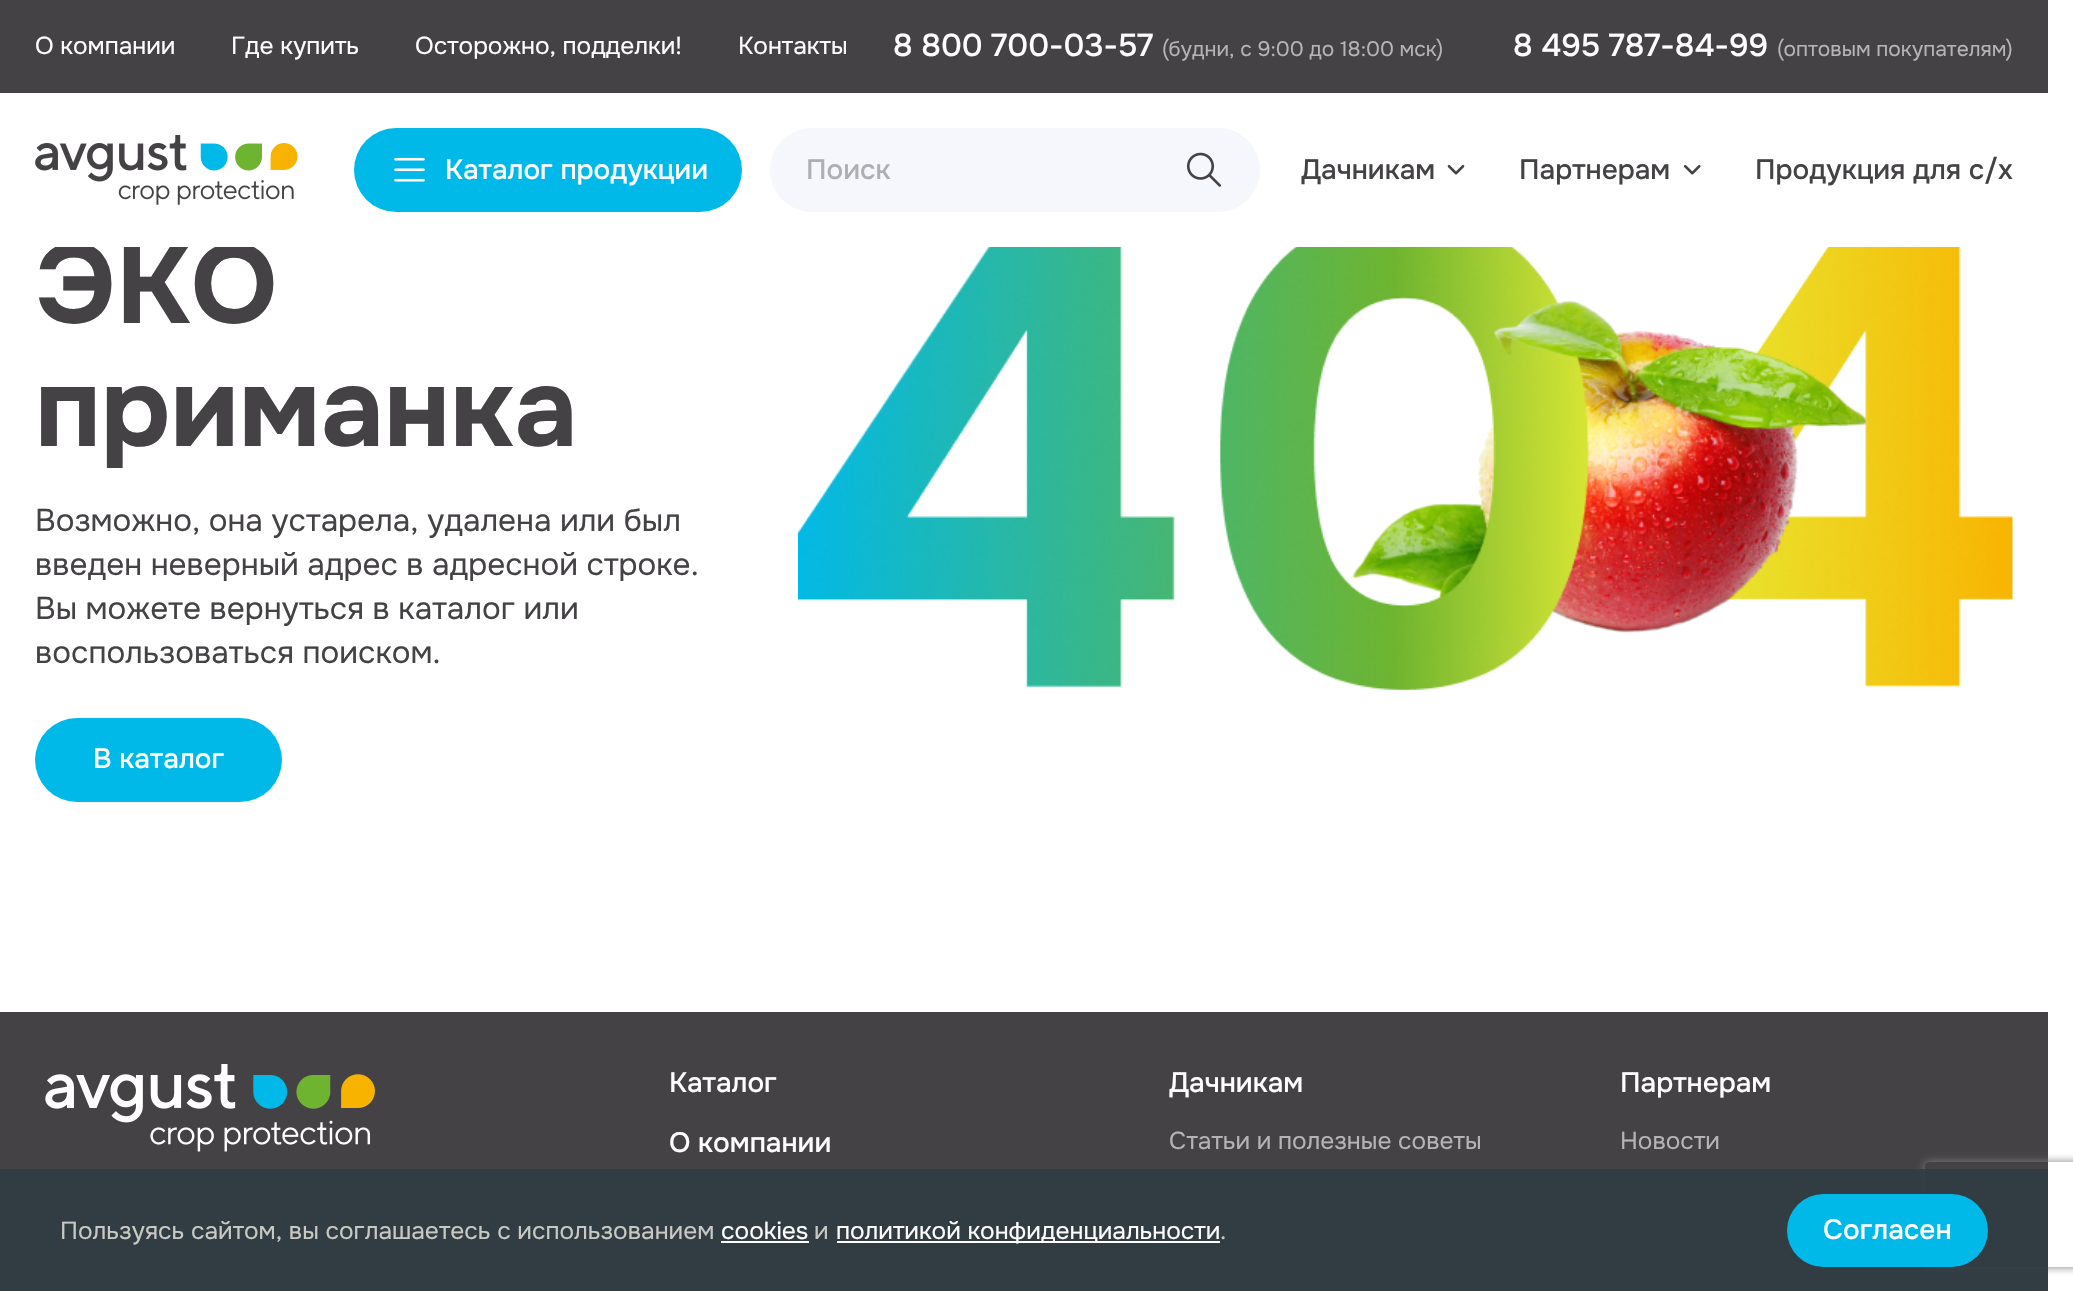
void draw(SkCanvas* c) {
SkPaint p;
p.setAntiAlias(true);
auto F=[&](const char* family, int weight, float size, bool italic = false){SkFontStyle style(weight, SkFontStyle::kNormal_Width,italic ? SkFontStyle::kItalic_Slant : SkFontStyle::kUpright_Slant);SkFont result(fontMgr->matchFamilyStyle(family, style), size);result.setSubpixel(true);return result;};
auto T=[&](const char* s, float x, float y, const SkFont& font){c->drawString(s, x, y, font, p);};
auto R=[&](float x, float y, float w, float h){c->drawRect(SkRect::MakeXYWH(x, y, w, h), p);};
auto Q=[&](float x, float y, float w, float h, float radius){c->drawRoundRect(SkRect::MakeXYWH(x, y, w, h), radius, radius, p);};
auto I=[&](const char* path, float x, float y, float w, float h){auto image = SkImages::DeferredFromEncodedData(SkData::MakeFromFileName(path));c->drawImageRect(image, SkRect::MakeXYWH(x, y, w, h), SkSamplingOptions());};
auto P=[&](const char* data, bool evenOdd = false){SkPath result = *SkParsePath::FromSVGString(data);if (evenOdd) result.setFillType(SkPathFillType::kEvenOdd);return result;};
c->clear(0xffffffff);
auto f1 = F("Onest",700,112);
p.setColor(0xff454246);
T("ЭКО",35,323,f1);
p.setColor(0xffffffff);
R(56,242,198,5);
p.setColor(0xff454246);
R(0,0,2048,93);
auto f2 = F("Onest",400,24.5);
p.setColor(0xffffffff);
T("О компании",35,54,f2);
T("Где купить",231,54,f2);
T("Осторожно, подделки!",415,54,f2);
T("Контакты",738,54,f2);
auto f3 = F("Onest",500,31.5);
T("8 800 700-03-57",893,56,f3);
auto f4 = F("Onest",400,21);
p.setColor(0xffb5b3b5);
T("(будни, с 9:00 до 18:00 мск)",1162,56,f4);
p.setColor(0xffffffff);
T("8 495 787-84-99",1513,56,f3);
p.setColor(0xffb5b3b5);
T("(оптовым покупателям)",1777,56,f4);
I("1.png",35,135,263,70);
p.setColor(0xff00b9e8);
Q(354,128,388,84,42);
I("2.png",394,157,31,25);
auto f5 = F("Onest",500,28);
p.setColor(0xffffffff);
T("Каталог продукции",445,179,f5);
p.setColor(0xfff6f7fc);
Q(770,128,490,84,42);
p.setColor(0xffafafb3);
T("Поиск",806,179,f5);
I("3.png",1186,152,35,35);
p.setColor(0xff454246);
T("Дачникам",1301,179,f5);
I("4.png",1447,165,18,10);
T("Партнерам",1519,179,f5);
I("5.png",1683,164,18,11);
T("Продукция для с/х",1755,179,f5);
T("приманка",35,446,f1);
auto f6 = F("Onest",400,31.5);
T("Возможно, она устарела, удалена или был",35,531,f6);
T("введен неверный адрес в адресной строке.",35,575,f6);
T("Вы можете вернуться в каталог или",35,619,f6);
T("воспользоваться поиском.",35,663,f6);
p.setColor(0xff00b9e8);
Q(35,718,247,84,42);
p.setColor(0xffffffff);
T("В каталог",93,768,f5);
I("6.png",798,247,1215,443);
p.setColor(0xff454246);
R(0,1012,2048,279);
I("7.png",45,1064,330,88);
p.setColor(0xffffffff);
T("Каталог",669,1092,f5);
T("О компании",669,1152,f5);
T("Дачникам",1169,1092,f5);
p.setColor(0xffb5b3b5);
T("Статьи и полезные советы",1169,1149,f2);
p.setColor(0xffffffff);
T("Партнерам",1620,1092,f5);
p.setColor(0xffb5b3b5);
T("Новости",1620,1149,f2);
c->save();
c->clipPath(P("M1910 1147h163v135h-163zm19 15h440c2 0 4 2 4 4v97c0 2-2 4-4 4h-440c-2 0-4-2-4-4v-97c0-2 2-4 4-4z",true),true);
p.setColor(0xff808080);
p.setMaskFilter(SkMaskFilter::MakeBlur(kNormal_SkBlurStyle, 4.5));
c->drawRoundRect(SkRect::MakeXYWH(1925,1162,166,105),4,4,p);
p.setMaskFilter(nullptr);
c->restore();
p.setColor(0xe62f3b42);
R(0,1169,2048,122);
p.setColor(0xffc9c9c3);
T("Пользуясь сайтом, вы соглашаетесь с использованием",60,1239,f2);
p.setColor(0xffffffff);
T("cookies",721,1239,f2);
R(721,1241,88,2);
p.setColor(0xffc9c9c3);
T("и",814,1239,f2);
p.setColor(0xffffffff);
R(837,1241,383,2);
T("политикой конфиденциальности",836,1239,f2);
p.setColor(0xffc9c9c3);
T(".",1220,1239,f2);
p.setColor(0xff00b9e8);
Q(1787,1194,201,73,36.5);
p.setColor(0xffffffff);
T("Согласен",1823,1239,f5);
}
